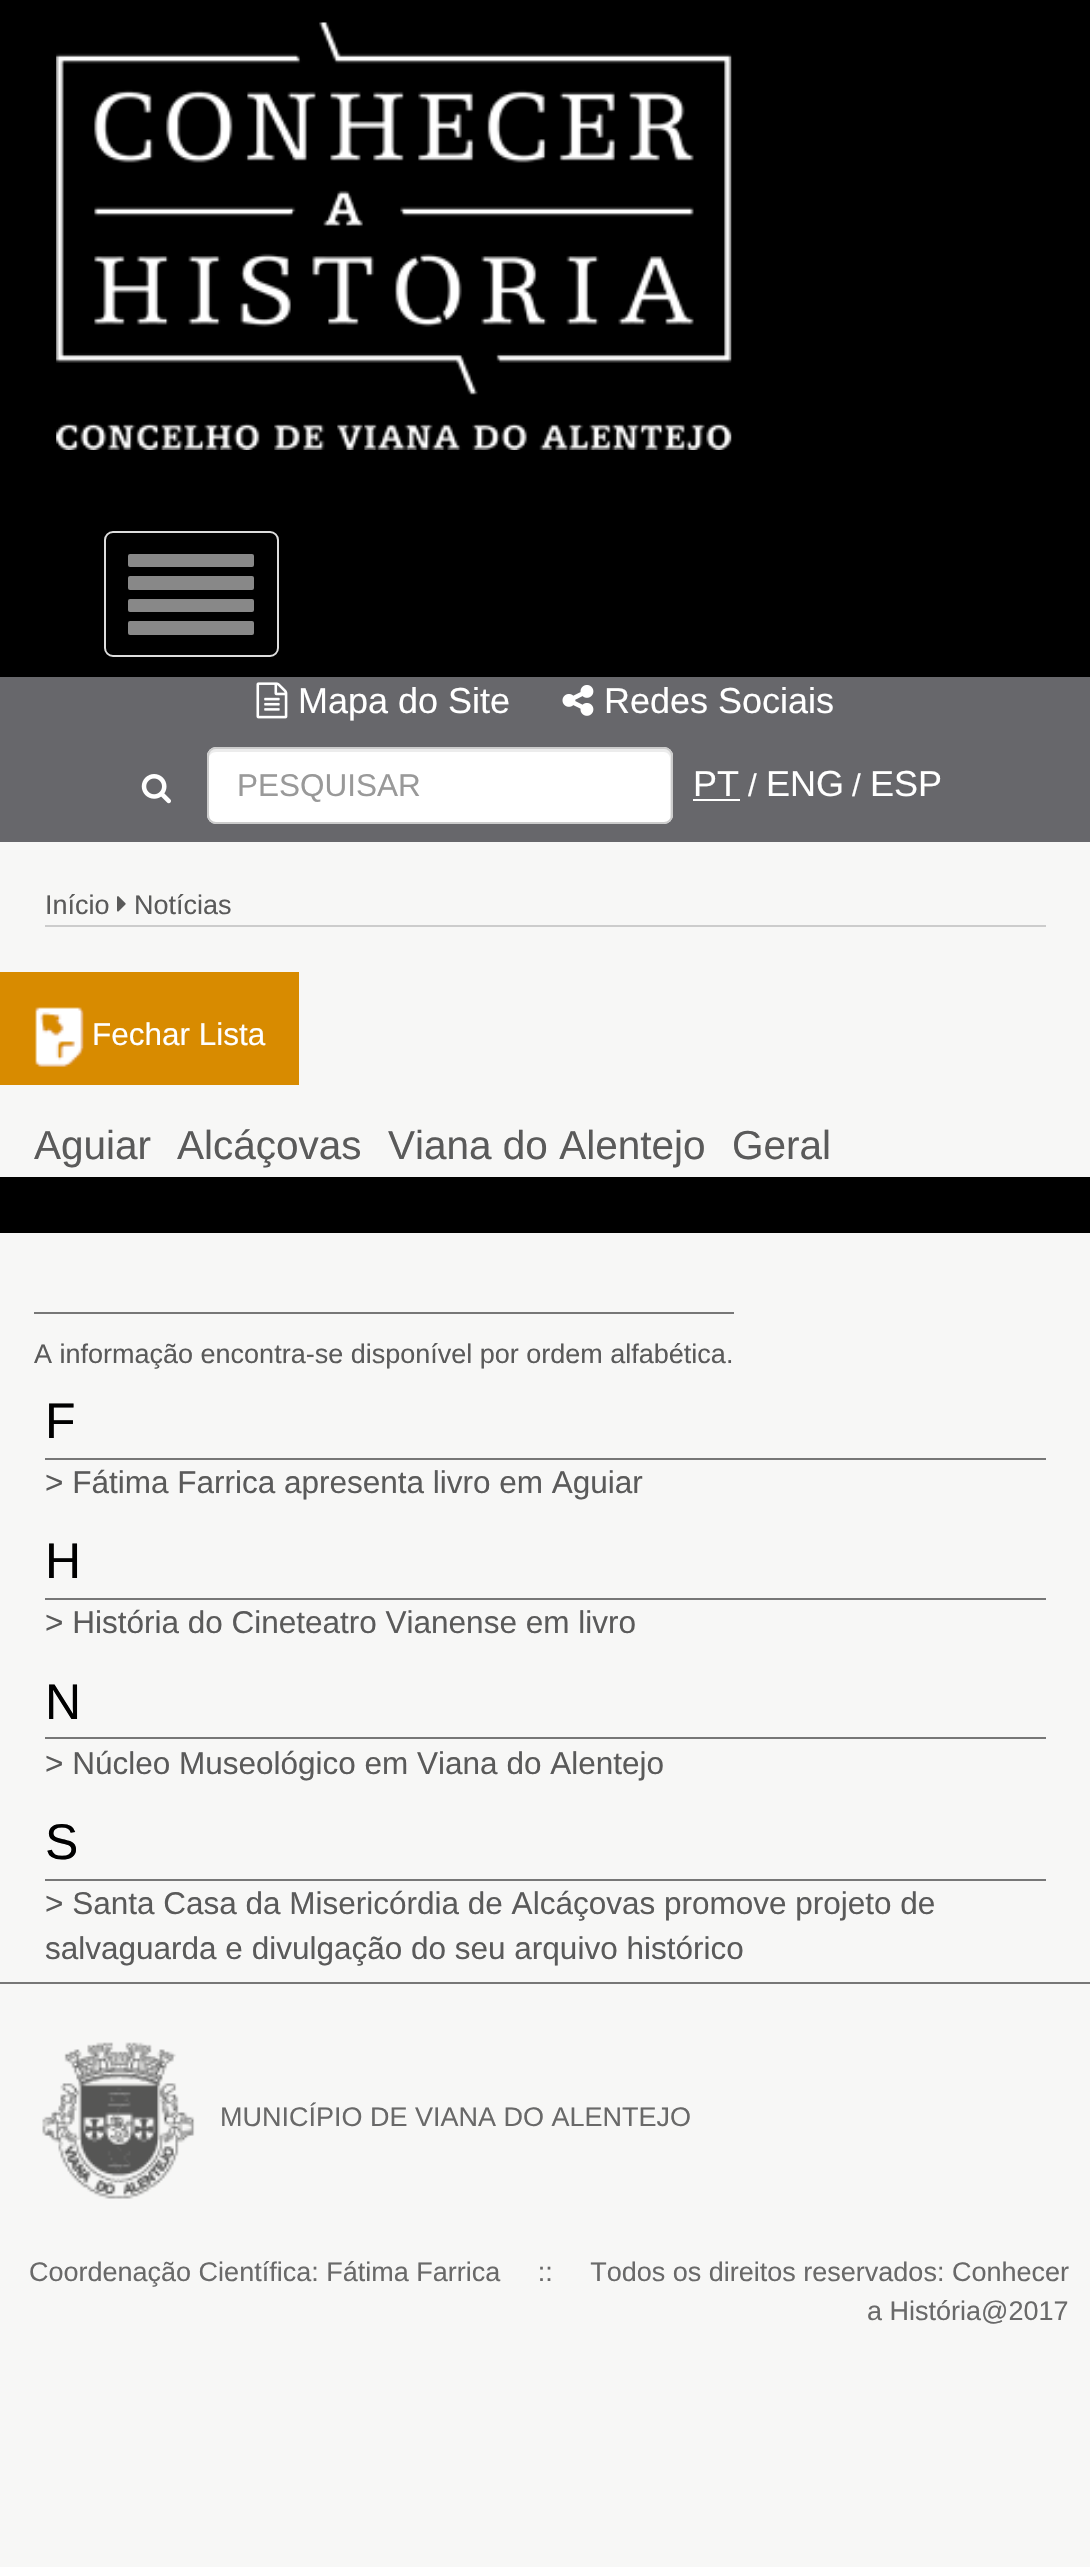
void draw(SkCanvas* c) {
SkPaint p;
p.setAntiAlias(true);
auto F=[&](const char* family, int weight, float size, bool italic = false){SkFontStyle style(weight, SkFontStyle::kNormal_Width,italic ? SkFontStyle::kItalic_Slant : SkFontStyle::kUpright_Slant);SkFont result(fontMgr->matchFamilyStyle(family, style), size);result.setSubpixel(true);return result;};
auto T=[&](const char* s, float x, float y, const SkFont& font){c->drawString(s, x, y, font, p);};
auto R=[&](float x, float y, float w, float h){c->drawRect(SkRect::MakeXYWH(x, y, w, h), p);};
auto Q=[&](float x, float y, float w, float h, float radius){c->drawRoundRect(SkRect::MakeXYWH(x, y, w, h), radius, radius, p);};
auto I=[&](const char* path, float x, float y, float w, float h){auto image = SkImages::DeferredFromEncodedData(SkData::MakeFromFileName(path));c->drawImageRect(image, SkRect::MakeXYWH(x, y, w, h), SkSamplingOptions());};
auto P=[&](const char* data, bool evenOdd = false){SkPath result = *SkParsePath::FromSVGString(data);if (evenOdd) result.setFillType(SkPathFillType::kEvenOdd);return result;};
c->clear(0xfff7f7f6);
p.setColor(0xff000000);
R(0,0,1090,677);
I("1.png",56,22,676,428);
p.setStroke(true);
p.setStrokeWidth(2);
p.setColor(0xffdddddd);
c->drawRoundRect(SkRect::MakeXYWH(105,532,173,124),8,8,p);
p.setStroke(false);
p.setColor(0xff888888);
Q(128,554,126,13,2);
Q(128,576,126,14,2);
Q(128,599,126,13,2);
Q(128,621,126,14,2);
p.setColor(0xff67676b);
R(0,677,1090,165);
I("2.png",256,682,32,37);
auto f1 = F("Liberation Sans",400,36);
p.setColor(0xffffffff);
T("Mapa do Site",298,713,f1);
I("3.png",562,685,32,31);
T("Redes Sociais",604,713,f1);
I("4.png",141,774,30,30);
Q(207,747,466,77,9);
p.setColor(0xffececec);
c->drawPath(P("M216 752h448c3 0 6 3 6 6v60c1-1 1-3 1-4v-58c0-4-3-7-7-7h-448c-4 0-7 3-7 7v2c0-3 3-6 7-6z"),p);
p.setStroke(true);
p.setColor(0xffcccccc);
c->drawRoundRect(SkRect::MakeXYWH(208,748,464,75),8,8,p);
auto f2 = F("Liberation Sans",400,31.5);
p.setStroke(false);
p.setColor(0xff999999);
T("PESQUISAR",237,796,f2);
p.setColor(0xffffffff);
T("PT",693,796,f1);
R(693,799,47,2);
T("/",748,796,f2);
T("ENG",766,796,f1);
T("/",852,796,f2);
T("ESP",870,796,f1);
p.setColor(0xffcccccc);
R(45,925,1001,2);
auto f3 = F("Liberation Sans",400,27);
p.setColor(0xff5a5a5a);
T("Início",45,914,f3);
I("5.png",117,896,9,16);
T("Notícias",134,914,f3);
p.setColor(0xffd88b00);
R(0,972,299,113);
I("6.png",35,1007,49,60);
p.setColor(0xffffffff);
T("Fechar Lista",92,1045,f2);
auto f4 = F("Liberation Sans",400,40.5);
p.setColor(0xff5a5a5a);
T("Aguiar",34,1159,f4);
T("Alcáçovas",177,1159,f4);
T("Viana do Alentejo",388,1159,f4);
T("Geral",732,1159,f4);
p.setColor(0xff000000);
R(0,1177,1090,56);
p.setColor(0xff777777);
R(34,1312,700,2);
p.setColor(0xff5a5a5a);
T("A informação encontra-se disponível por ordem alfabética.",34,1363,f3);
auto f5 = F("Liberation Sans",400,50);
p.setColor(0xff000000);
T("F",45,1438,f5);
p.setColor(0xff777777);
R(45,1458,1001,2);
p.setColor(0xff5a5a5a);
T("> Fátima Farrica apresenta livro em Aguiar",45,1493,f2);
p.setColor(0xff000000);
T("H",45,1578,f5);
p.setColor(0xff777777);
R(45,1598,1001,2);
p.setColor(0xff5a5a5a);
T("> História do Cineteatro Vianense em livro",45,1633,f2);
p.setColor(0xff000000);
T("N",45,1719,f5);
p.setColor(0xff777777);
R(45,1737,1001,2);
p.setColor(0xff5a5a5a);
T("> Núcleo Museológico em Viana do Alentejo",45,1774,f2);
p.setColor(0xff000000);
T("S",45,1859,f5);
p.setColor(0xff777777);
R(45,1879,1001,2);
p.setColor(0xff5a5a5a);
T("> Santa Casa da Misericórdia de Alcáçovas promove projeto de",45,1914,f2);
T("salvaguarda e divulgação do seu arquivo histórico",45,1959,f2);
p.setColor(0xff777777);
R(0,1982,1090,2);
I("7.png",42,2042,153,157);
p.setColor(0xff696969);
T("MUNICÍPIO DE VIANA DO ALENTEJO",220,2126,f3);
T("Coordenação Científica: Fátima Farrica     ::     Todos os direitos reservados: Conhecer",29,2281,f3);
T("a História@2017",867,2320,f3);
}
